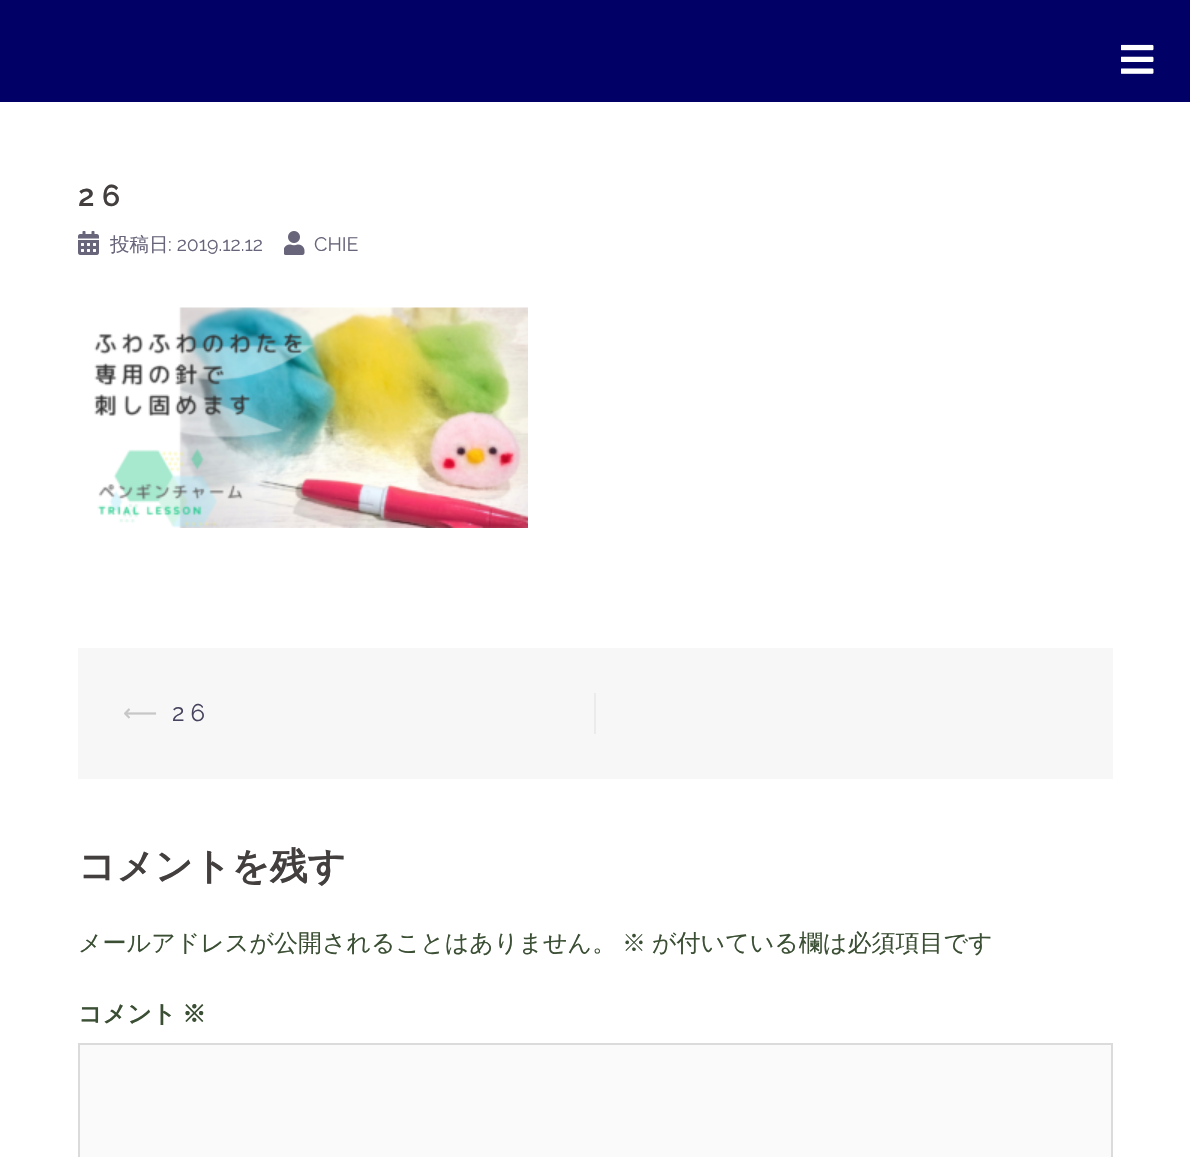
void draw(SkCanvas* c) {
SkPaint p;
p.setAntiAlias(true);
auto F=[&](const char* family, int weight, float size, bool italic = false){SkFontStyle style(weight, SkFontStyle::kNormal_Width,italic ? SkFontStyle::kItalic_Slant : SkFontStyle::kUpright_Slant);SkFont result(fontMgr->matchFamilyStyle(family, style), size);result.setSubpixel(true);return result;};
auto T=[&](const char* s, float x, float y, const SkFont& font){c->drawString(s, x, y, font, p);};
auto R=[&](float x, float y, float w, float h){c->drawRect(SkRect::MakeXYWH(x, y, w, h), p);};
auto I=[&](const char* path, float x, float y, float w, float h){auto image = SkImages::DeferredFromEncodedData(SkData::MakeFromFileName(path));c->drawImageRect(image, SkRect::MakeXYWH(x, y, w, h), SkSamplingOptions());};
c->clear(0xffffffff);
p.setColor(0xff000066);
R(0,0,1190,102);
I("1.png",1121,44,33,30);
auto f1 = F("Raleway",600,30);
p.setColor(0xff443f3f);
T("2 6",78,206,f1);
I("2.png",78,231,21,24);
auto f2 = F("WenQuanYi Zen Hei",500,19.5);
p.setColor(0xff68647a);
T("投稿日",110,251,f2);
auto f3 = F("Raleway",400,19.5);
T(": 2019.12.12",168,251,f3);
I("3.png",284,231,21,24);
T("CHIE",314,251,f3);
I("4.png",94,307,434,221);
p.setColor(0xfff7f7f7);
R(78,648,1035,131);
p.setColor(0xffebebeb);
R(594,693,2,41);
auto f4 = F("DejaVu Sans",400,24);
p.setColor(0xffc7c7c7);
T("⟵",123,721,f4);
auto f5 = F("Raleway",400,24);
p.setColor(0xff47425d);
T("2 6",172,721,f5);
auto f6 = F("WenQuanYi Zen Hei",700,37.5);
p.setColor(0xff443f3f);
T("コメントを残す",78,879,f6);
auto f7 = F("WenQuanYi Zen Hei",500,24);
p.setColor(0xff3b4f34);
T("メールアドレスが公開されることはありません。",78,951,f7);
T("※",622,951,f7);
T("が付いている欄は必須項目です",652,951,f7);
auto f8 = F("WenQuanYi Zen Hei",700,24);
T("コメント",78,1022,f8);
T("※",182,1022,f8);
p.setColor(0xfffafafa);
c->drawRect(SkRect::MakeXYWH(79,1044,1033,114),p);
p.setStroke(true);
p.setStrokeWidth(2);
p.setColor(0xffdbdbdb);
c->drawRect(SkRect::MakeXYWH(79,1044,1033,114),p);
}
